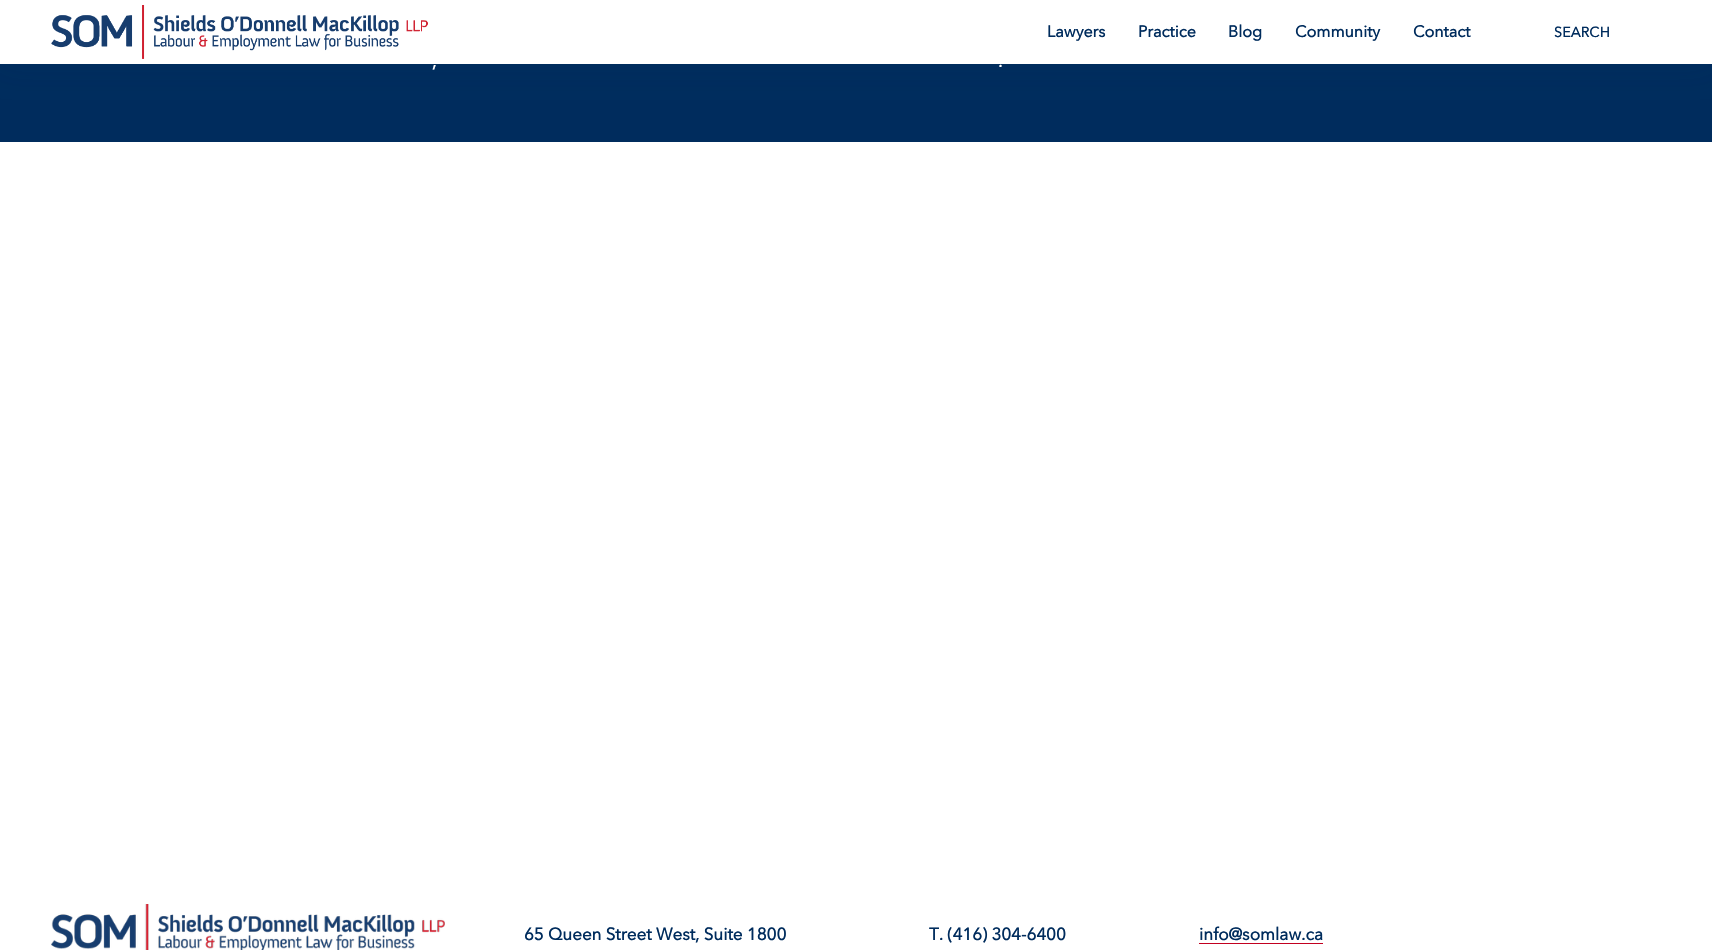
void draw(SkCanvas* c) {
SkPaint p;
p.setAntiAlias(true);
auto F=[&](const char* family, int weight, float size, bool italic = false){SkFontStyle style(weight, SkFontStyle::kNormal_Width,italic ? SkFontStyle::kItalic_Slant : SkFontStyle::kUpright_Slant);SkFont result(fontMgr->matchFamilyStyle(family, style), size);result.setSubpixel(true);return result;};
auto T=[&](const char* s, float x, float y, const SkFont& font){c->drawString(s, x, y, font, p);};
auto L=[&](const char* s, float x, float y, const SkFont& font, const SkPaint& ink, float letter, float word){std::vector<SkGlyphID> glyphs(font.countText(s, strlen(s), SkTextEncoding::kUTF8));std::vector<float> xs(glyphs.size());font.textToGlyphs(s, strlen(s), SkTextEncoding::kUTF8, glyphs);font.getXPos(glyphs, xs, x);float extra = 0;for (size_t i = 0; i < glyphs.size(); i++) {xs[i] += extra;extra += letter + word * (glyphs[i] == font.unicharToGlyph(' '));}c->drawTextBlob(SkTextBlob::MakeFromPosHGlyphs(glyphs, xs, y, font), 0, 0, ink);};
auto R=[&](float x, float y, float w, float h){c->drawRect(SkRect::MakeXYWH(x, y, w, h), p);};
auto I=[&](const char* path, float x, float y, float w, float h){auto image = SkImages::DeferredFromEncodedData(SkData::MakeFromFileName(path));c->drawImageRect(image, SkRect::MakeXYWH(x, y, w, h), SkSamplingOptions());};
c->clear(0xff002c5d);
p.setColor(0x26002c5d);
p.setMaskFilter(SkMaskFilter::MakeBlur(kNormal_SkBlurStyle, 15));
c->drawRect(SkRect::MakeXYWH(0,0,1712,64),p);
p.setMaskFilter(nullptr);
p.setColor(0xffffffff);
R(0,0,1712,64);
I("1.png",51,5,377,54);
auto f1 = F("Avenir Next",700,16);
p.setColor(0xff002c5d);
T("Lawyers",1047,37,f1);
T("Practice",1138,37,f1);
T("Blog",1228,37,f1);
T("Community",1295,37,f1);
T("Contact",1413,37,f1);
auto f2 = F("Avenir Next",700,14);
L("SEARCH",1554,37,f2,p,.25,0);
auto f3 = F("Avenir Next",700,17);
p.setColor(0xffffffff);
T(",",432,67,f3);
T(".",998,67,f3);
R(0,142,1712,808);
I("2.png",51,904,394,46);
p.setColor(0xff002c5d);
T("65 Queen Street West, Suite 1800",524,940,f3);
T("T. (416) 304-6400",929,940,f3);
T("info@somlaw.ca",1199,940,f3);
p.setColor(0xffc20020);
R(1199,943,124,1);
}
